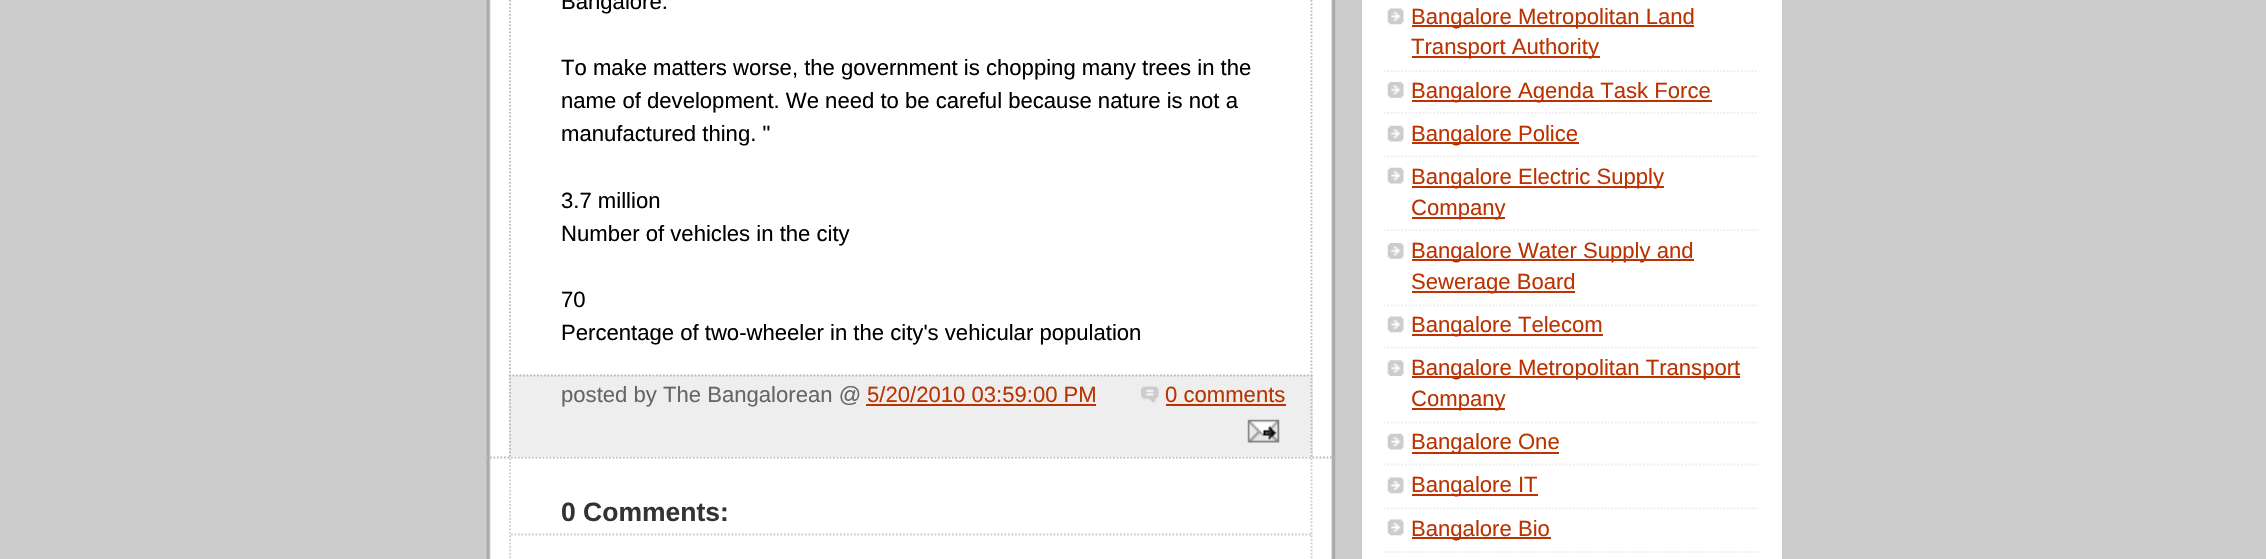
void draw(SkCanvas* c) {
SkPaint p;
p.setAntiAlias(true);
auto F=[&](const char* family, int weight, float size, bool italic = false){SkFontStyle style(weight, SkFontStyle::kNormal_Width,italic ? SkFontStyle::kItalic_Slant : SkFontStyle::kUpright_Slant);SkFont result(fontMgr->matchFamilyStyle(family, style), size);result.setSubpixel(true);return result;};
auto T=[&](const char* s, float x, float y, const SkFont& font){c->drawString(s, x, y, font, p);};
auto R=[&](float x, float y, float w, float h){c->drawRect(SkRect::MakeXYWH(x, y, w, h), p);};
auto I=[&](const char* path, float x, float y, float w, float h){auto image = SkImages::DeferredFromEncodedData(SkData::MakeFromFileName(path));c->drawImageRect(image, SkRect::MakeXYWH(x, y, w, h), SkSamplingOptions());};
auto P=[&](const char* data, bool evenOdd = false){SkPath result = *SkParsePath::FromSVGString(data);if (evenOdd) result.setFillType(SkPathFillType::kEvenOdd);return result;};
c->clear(0xffcccccc);
p.setColor(0xffffffff);
R(489,0,844,559);
I("1.png",486,0,850,559);
p.setStroke(true);
p.setStrokeWidth(1.8);
p.setColor(0xffbbbbbb);
p.setPathEffect(SkDashPathEffect::Make({{1.75f,1.75f}}, 0));
c->drawPath(P("M486.5 457.5h848.5"),p);
p.setPathEffect(nullptr);
p.setPathEffect(SkDashPathEffect::Make({{1.75f,1.75f}}, 0));
c->drawPath(P("M1311.5-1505v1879.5"),p);
p.setPathEffect(nullptr);
p.setPathEffect(SkDashPathEffect::Make({{1.75f,1.75f}}, 0));
c->drawPath(P("M510-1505v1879.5"),p);
p.setPathEffect(nullptr);
auto f1 = F("Liberation Sans",400,22.1);
p.setStroke(false);
p.setColor(0xff000000);
T("Bangalore.",561,9,f1);
T("To make matters worse, the government is chopping many trees in the",561,75,f1);
T("name of development. We need to be careful because nature is not a",561,108,f1);
T("manufactured thing. \"",561,141,f1);
T("3.7 million",561,208,f1);
T("Number of vehicles in the city",561,241,f1);
T("70",561,307,f1);
T("Percentage of two-wheeler in the city's vehicular population",561,340,f1);
p.setColor(0xffeeeeee);
R(509,375,804,82);
p.setStroke(true);
p.setColor(0xffbbbbbb);
p.setPathEffect(SkDashPathEffect::Make({{1.75f,1.75f}}, 0));
c->drawPath(P("M509 375.5h803.5"),p);
p.setPathEffect(nullptr);
p.setPathEffect(SkDashPathEffect::Make({{1.75f,1.75f}}, 0));
c->drawPath(P("M1311.5 374.5v82.5"),p);
p.setPathEffect(nullptr);
p.setPathEffect(SkDashPathEffect::Make({{1.75f,1.75f}}, 0));
c->drawPath(P("M510 374.5v82.5"),p);
p.setPathEffect(nullptr);
p.setStroke(false);
p.setColor(0xff666666);
T("posted by The Bangalorean @",561,402,f1);
p.setColor(0xffbb3300);
T("5/20/2010 03:59:00 PM",867,402,f1);
R(866,404,230,2);
I("2.png",1141,386,18,17);
T("0 comments",1165,402,f1);
R(1166,404,120,2);
I("3.png",1247,419,33,24);
p.setStroke(true);
p.setColor(0xffcccccc);
p.setPathEffect(SkDashPathEffect::Make({{1.75f,1.75f}}, 0));
c->drawPath(P("M1311.5 458.5v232.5"),p);
p.setPathEffect(nullptr);
p.setPathEffect(SkDashPathEffect::Make({{1.75f,1.75f}}, 0));
c->drawPath(P("M510 458.5v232.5"),p);
p.setPathEffect(nullptr);
p.setPathEffect(SkDashPathEffect::Make({{1.75f,1.75f}}, 0));
c->drawPath(P("M511 534.5h800"),p);
p.setPathEffect(nullptr);
auto f2 = F("Liberation Sans",700,26.5);
p.setStroke(false);
p.setColor(0xff333333);
T("0 Comments:",561,521,f2);
p.setColor(0xffffffff);
R(1362,0,420,559);
I("4.png",1387,8,17,17);
p.setStroke(true);
p.setColor(0xffeeeeee);
p.setPathEffect(SkDashPathEffect::Make({{1.75f,1.75f}}, 0));
c->drawPath(P("M1384 71h375"),p);
p.setPathEffect(nullptr);
p.setStroke(false);
p.setColor(0xffbb3300);
R(1412,25,282,2);
T("Bangalore Metropolitan Land",1411,24,f1);
R(1412,56,188,2);
T("Transport Authority",1411,54,f1);
I("5.png",1387,82,17,16);
p.setStroke(true);
p.setColor(0xffeeeeee);
p.setPathEffect(SkDashPathEffect::Make({{1.75f,1.75f}}, 0));
c->drawPath(P("M1384 113h375"),p);
p.setPathEffect(nullptr);
p.setStroke(false);
p.setColor(0xffbb3300);
R(1412,100,300,2);
T("Bangalore Agenda Task Force",1411,98,f1);
I("6.png",1387,125,17,17);
p.setStroke(true);
p.setColor(0xffeeeeee);
p.setPathEffect(SkDashPathEffect::Make({{1.75f,1.75f}}, 0));
c->drawPath(P("M1384 156.5h375"),p);
p.setPathEffect(nullptr);
p.setStroke(false);
p.setColor(0xffbb3300);
R(1412,142,167,2);
T("Bangalore Police",1411,141,f1);
I("6.png",1387,167,17,17);
p.setStroke(true);
p.setColor(0xffeeeeee);
p.setPathEffect(SkDashPathEffect::Make({{1.75f,1.75f}}, 0));
c->drawPath(P("M1384 230h375"),p);
p.setPathEffect(nullptr);
p.setStroke(false);
p.setColor(0xffbb3300);
R(1412,186,252,2);
T("Bangalore Electric Supply",1411,184,f1);
R(1412,217,93,2);
T("Company",1411,215,f1);
I("5.png",1387,243,17,16);
p.setStroke(true);
p.setColor(0xffeeeeee);
p.setPathEffect(SkDashPathEffect::Make({{1.75f,1.75f}}, 0));
c->drawPath(P("M1384 305.5h375"),p);
p.setPathEffect(nullptr);
p.setStroke(false);
p.setColor(0xffbb3300);
R(1412,259,282,2);
T("Bangalore Water Supply and",1411,258,f1);
R(1412,291,163,2);
T("Sewerage Board",1411,289,f1);
I("4.png",1387,316,17,17);
p.setStroke(true);
p.setColor(0xffeeeeee);
p.setPathEffect(SkDashPathEffect::Make({{1.75f,1.75f}}, 0));
c->drawPath(P("M1384 347.5h375"),p);
p.setPathEffect(nullptr);
p.setStroke(false);
p.setColor(0xffbb3300);
R(1412,334,191,2);
T("Bangalore Telecom",1411,332,f1);
I("7.png",1387,360,17,16);
p.setStroke(true);
p.setColor(0xffeeeeee);
p.setPathEffect(SkDashPathEffect::Make({{1.75f,1.75f}}, 0));
c->drawPath(P("M1384 422.5h375"),p);
p.setPathEffect(nullptr);
p.setStroke(false);
p.setColor(0xffbb3300);
R(1412,376,328,2);
T("Bangalore Metropolitan Transport",1411,375,f1);
R(1412,408,93,2);
T("Company",1411,406,f1);
I("6.png",1387,433,17,17);
p.setStroke(true);
p.setColor(0xffeeeeee);
p.setPathEffect(SkDashPathEffect::Make({{1.75f,1.75f}}, 0));
c->drawPath(P("M1384 464.5h375"),p);
p.setPathEffect(nullptr);
p.setStroke(false);
p.setColor(0xffbb3300);
R(1412,452,147,2);
T("Bangalore One",1411,449,f1);
I("4.png",1387,477,17,17);
p.setStroke(true);
p.setColor(0xffeeeeee);
p.setPathEffect(SkDashPathEffect::Make({{1.75f,1.75f}}, 0));
c->drawPath(P("M1384 508.5h375"),p);
p.setPathEffect(nullptr);
p.setStroke(false);
p.setColor(0xffbb3300);
R(1412,494,126,2);
T("Bangalore IT",1411,492,f1);
I("4.png",1387,519,17,17);
p.setStroke(true);
p.setColor(0xffeeeeee);
p.setPathEffect(SkDashPathEffect::Make({{1.75f,1.75f}}, 0));
c->drawPath(P("M1384 552h375"),p);
p.setPathEffect(nullptr);
p.setStroke(false);
p.setColor(0xffbb3300);
R(1412,537,139,2);
T("Bangalore Bio",1411,536,f1);
}
